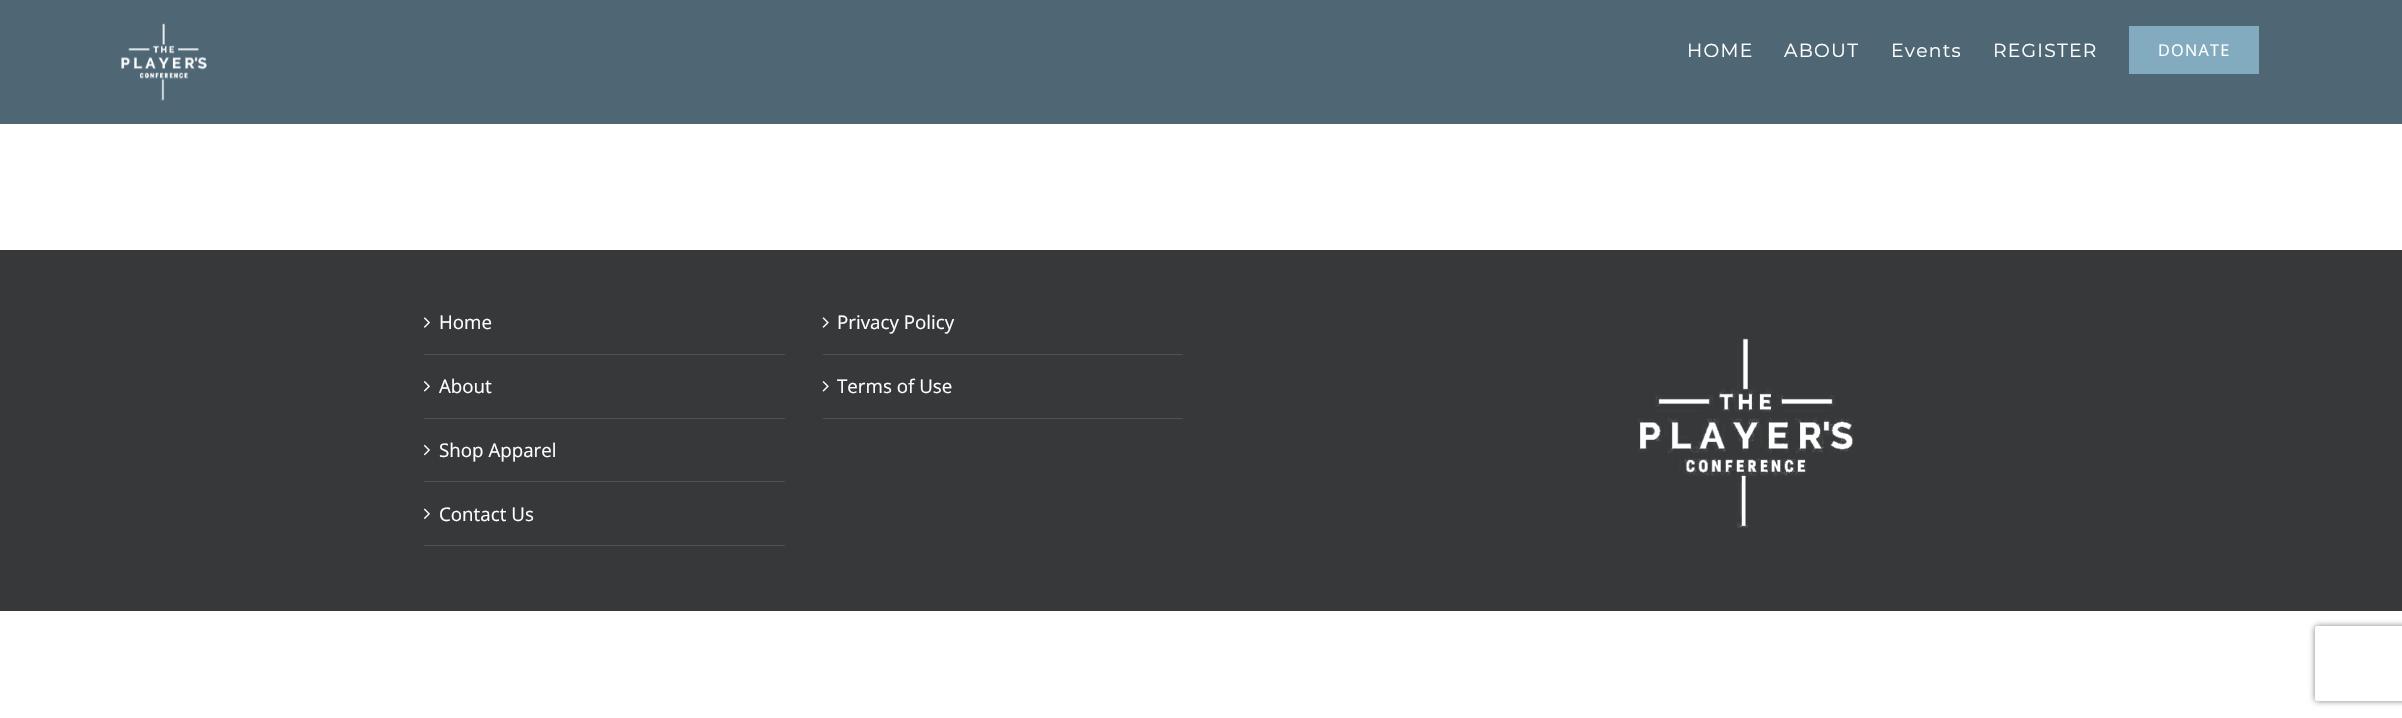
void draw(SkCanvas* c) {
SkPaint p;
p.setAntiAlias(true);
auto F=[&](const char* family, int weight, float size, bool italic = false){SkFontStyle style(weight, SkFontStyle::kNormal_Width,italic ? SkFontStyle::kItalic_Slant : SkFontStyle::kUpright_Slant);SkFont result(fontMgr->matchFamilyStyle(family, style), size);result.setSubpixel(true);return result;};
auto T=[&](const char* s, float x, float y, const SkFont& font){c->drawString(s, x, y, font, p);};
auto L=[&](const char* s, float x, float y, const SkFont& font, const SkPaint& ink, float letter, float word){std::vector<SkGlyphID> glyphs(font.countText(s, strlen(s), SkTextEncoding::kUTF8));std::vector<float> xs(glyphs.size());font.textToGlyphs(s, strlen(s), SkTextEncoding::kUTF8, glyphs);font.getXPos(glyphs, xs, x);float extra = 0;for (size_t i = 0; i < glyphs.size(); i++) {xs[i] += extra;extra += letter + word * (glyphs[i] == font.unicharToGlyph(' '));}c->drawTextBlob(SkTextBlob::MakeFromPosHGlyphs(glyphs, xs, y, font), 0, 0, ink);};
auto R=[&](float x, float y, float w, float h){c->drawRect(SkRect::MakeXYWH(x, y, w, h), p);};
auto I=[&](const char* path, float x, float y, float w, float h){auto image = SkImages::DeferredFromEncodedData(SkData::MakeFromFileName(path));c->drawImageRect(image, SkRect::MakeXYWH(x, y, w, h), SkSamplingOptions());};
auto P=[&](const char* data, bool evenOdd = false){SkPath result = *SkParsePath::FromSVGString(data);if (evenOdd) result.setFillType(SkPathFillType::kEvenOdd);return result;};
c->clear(0xffffffff);
p.setColor(0xff4f6775);
R(0,0,2402,124);
I("1.png",121,23,86,78);
auto f1 = F("Montserrat",100,18.75);
p.setColor(0xffffffff);
L("HOME",1687,57,f1,p,1.25,0);
L("ABOUT",1784,57,f1,p,1.25,0);
L("Events",1891,57,f1,p,1.25,0);
L("REGISTER",1993,57,f1,p,1.25,0);
p.setColor(0xff83abbf);
R(2129,26,130,48);
auto f2 = F("Open Sans",400,16.25);
p.setColor(0xffffffff);
L("DONATE",2158,56,f2,p,1.25,0);
p.setColor(0xff363839);
R(0,250,2402,361);
p.setColor(0xff505152);
R(424,354,361,1);
I("2.png",423,317,7,11);
auto f3 = F("Open Sans",400,18.75);
p.setColor(0xffffffff);
T("Home",439,329,f3);
p.setColor(0xff505152);
R(424,418,361,1);
I("3.png",423,381,7,11);
p.setColor(0xffffffff);
T("About",439,393,f3);
p.setColor(0xff505152);
R(424,481,361,1);
I("4.png",423,444,7,12);
p.setColor(0xffffffff);
T("Shop Apparel",439,457,f3);
p.setColor(0xff505152);
R(424,545,361,1);
I("5.png",423,508,7,11);
p.setColor(0xffffffff);
T("Contact Us",439,521,f3);
p.setColor(0xff505152);
R(823,354,360,1);
I("6.png",822,317,7,11);
p.setColor(0xffffffff);
T("Privacy Policy",837,329,f3);
p.setColor(0xff505152);
R(823,418,360,1);
I("7.png",822,381,7,11);
p.setColor(0xffffffff);
T("Terms of Use",837,393,f3);
I("8.png",1638,338,215,190);
c->save();
c->clipPath(P("M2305 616h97v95h-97zm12.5 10h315c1.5 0 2.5 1 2.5 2.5v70c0 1.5-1 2.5-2.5 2.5h-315c-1.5 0-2.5-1-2.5-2.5v-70c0-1.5 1-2.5 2.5-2.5z",true),true);
p.setColor(0xff808080);
p.setMaskFilter(SkMaskFilter::MakeBlur(kNormal_SkBlurStyle, 3));
c->drawRoundRect(SkRect::MakeXYWH(2315,626,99,75),2.5,2.5,p);
p.setMaskFilter(nullptr);
c->restore();
}
